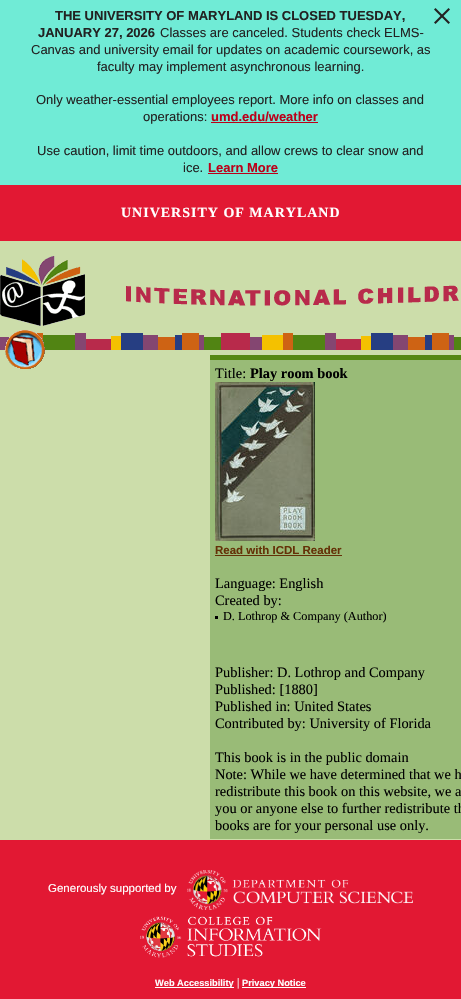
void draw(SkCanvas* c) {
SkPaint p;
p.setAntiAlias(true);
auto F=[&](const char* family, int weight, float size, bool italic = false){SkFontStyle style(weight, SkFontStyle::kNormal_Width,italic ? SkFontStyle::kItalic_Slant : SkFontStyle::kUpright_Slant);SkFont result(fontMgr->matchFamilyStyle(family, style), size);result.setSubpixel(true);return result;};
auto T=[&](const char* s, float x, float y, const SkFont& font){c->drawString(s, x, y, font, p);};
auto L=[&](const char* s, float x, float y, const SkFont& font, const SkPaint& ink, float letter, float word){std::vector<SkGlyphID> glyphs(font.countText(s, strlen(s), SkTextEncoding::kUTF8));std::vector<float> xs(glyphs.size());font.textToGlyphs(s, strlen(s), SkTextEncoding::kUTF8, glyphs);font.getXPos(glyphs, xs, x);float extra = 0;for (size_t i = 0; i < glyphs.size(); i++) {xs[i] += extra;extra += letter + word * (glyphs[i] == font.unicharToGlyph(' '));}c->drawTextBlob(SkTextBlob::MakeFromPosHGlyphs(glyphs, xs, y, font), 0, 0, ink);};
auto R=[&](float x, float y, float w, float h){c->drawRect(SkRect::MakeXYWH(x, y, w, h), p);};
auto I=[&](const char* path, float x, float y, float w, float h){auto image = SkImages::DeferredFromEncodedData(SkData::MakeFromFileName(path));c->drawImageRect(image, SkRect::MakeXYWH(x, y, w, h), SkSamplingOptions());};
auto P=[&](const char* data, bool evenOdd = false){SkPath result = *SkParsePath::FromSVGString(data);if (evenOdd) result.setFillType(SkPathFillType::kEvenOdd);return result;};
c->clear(0xffccddaa);
p.setColor(0xff70ebd6);
R(0,0,461,185);
auto f1 = F("Liberation Sans",700,13);
p.setColor(0xff222222);
T("THE UNIVERSITY OF MARYLAND IS CLOSED TUESDAY,",55,20,f1);
c->drawPath(P("M450 22.5l-1.5 1.5l-14.5-14.5l1.5-1.5z"),p);
c->drawPath(P("M448.5 8l1.5 1.5l-14.5 14.5l-1.5-1.5z"),p);
T("JANUARY 27, 2026",38,37,f1);
auto f2 = F("Liberation Sans",400,13);
T("Classes are canceled. Students check ELMS-",160,37,f2);
T("Canvas and university email for updates on academic coursework, as",31,54,f2);
T("faculty may implement asynchronous learning.",97,71,f2);
T("Only weather-essential employees report. More info on classes and",36,104,f2);
T("operations:",143,121,f2);
p.setColor(0xffbb0019);
T("umd.edu/weather",211,121,f1);
R(211,122,107,1);
p.setColor(0xff222222);
T("Use caution, limit time outdoors, and allow crews to clear snow and",37,155,f2);
T("ice.",183,172,f2);
p.setColor(0xffbb0019);
T("Learn More",208,172,f1);
R(208,173,70,1);
p.setColor(0xffe21833);
R(0,185,461,56);
auto f3 = F("Liberation Serif",700,14);
p.setColor(0xffffffff);
L("UNIVERSITY OF MARYLAND",121,217,f3,p,1,0);
I("1.png",0,256,85,70);
I("2.png",126,285,333,21);
I("4.png",0,333,461,17);
I("3.png",5,330,40,39);
p.setColor(0xff99bb77);
R(210,360,251,479);
p.setColor(0xff558811);
R(210,355,251,5);
auto f4 = F("Liberation Serif",400,14.4);
p.setColor(0xff000000);
T("Title:",215,378,f4);
auto f5 = F("Liberation Serif",700,14.4);
T("Play room book",250,378,f5);
I("5.png",215,382,100,159);
auto f6 = F("Liberation Sans",700,11.5);
p.setColor(0xff643107);
T("Read with ICDL Reader",215,554,f6);
R(215,555,127,1);
p.setColor(0xff000000);
T("Language: English",215,588,f4);
T("Created by:",215,605,f4);
R(215,616,3,3);
auto f7 = F("Liberation Serif",400,12.25);
T("D. Lothrop & Company (Author)",223,620,f7);
T("Publisher: D. Lothrop and Company",215,677,f4);
T("Published: [1880]",215,694,f4);
T("Published in: United States",215,711,f4);
T("Contributed by: University of Florida",215,728,f4);
T("This book is in the public domain",215,762,f4);
T("Note: While we have determined that we h",215,779,f4);
T("redistribute this book on this website, we a",215,796,f4);
T("you or anyone else to further redistribute th",215,813,f4);
T("books are for your personal use only.",215,830,f4);
p.setColor(0xffe21833);
R(0,840,461,159);
auto f8 = F("Liberation Sans",400,11.5);
p.setColor(0xffffffff);
T("Generously supported by",48,892,f8);
I("6.png",187,870,226,40);
I("7.png",140,916,182,42);
R(155,987,79,1);
auto f9 = F("Liberation Sans",700,9.25);
T("Web Accessibility",155,986,f9);
auto f10 = F("Liberation Serif",400,11.5);
T("|",237,986,f10);
R(242,987,64,1);
T("Privacy Notice",242,986,f9);
}
